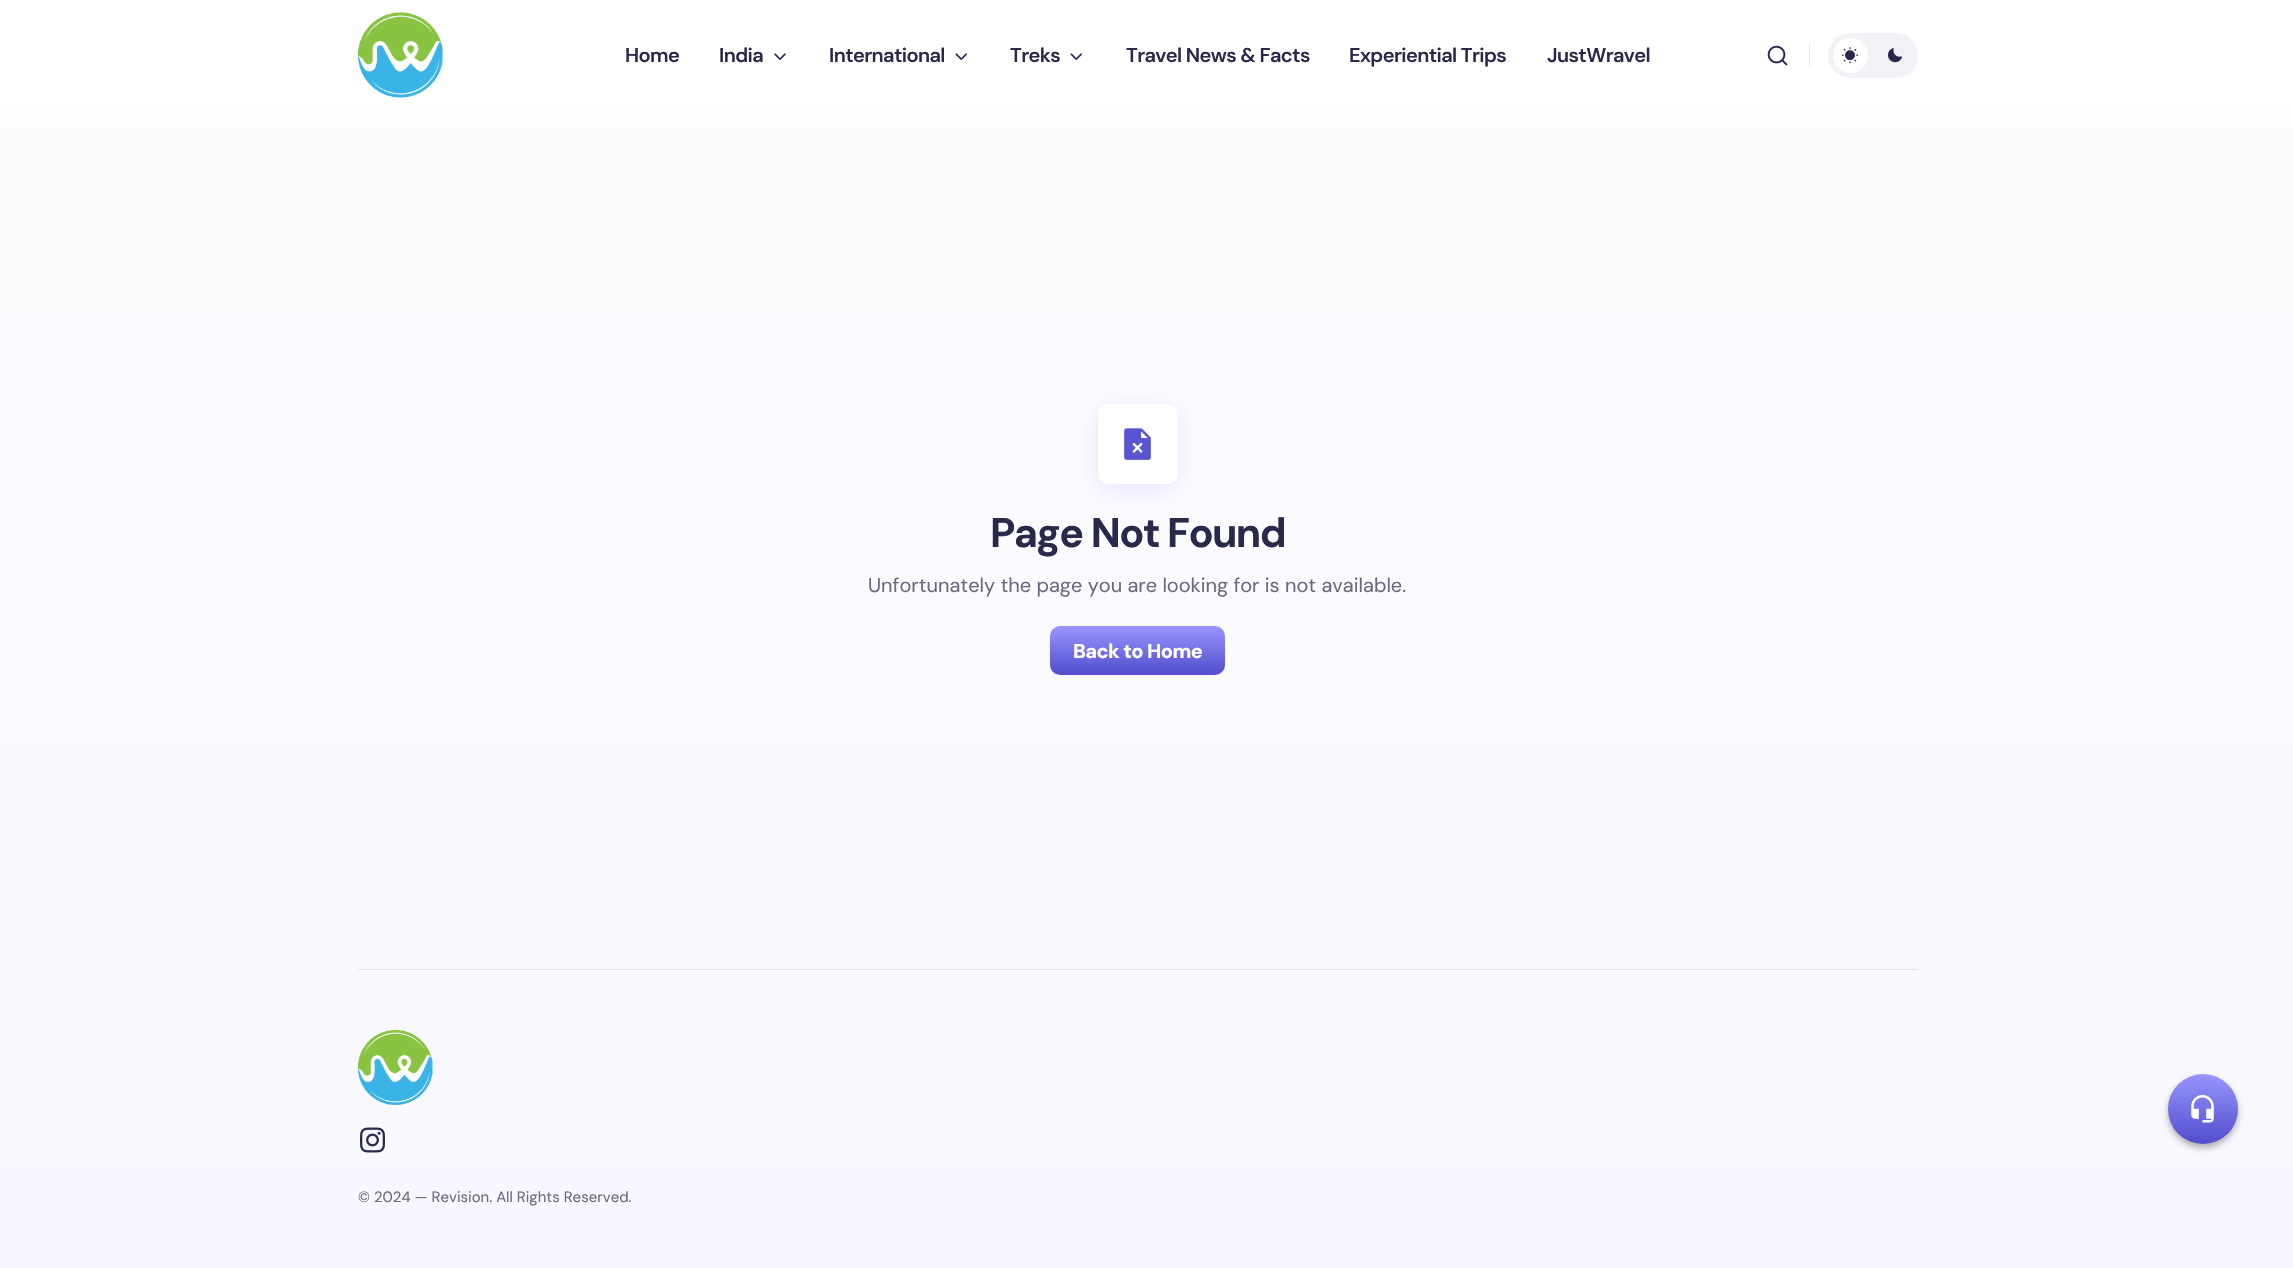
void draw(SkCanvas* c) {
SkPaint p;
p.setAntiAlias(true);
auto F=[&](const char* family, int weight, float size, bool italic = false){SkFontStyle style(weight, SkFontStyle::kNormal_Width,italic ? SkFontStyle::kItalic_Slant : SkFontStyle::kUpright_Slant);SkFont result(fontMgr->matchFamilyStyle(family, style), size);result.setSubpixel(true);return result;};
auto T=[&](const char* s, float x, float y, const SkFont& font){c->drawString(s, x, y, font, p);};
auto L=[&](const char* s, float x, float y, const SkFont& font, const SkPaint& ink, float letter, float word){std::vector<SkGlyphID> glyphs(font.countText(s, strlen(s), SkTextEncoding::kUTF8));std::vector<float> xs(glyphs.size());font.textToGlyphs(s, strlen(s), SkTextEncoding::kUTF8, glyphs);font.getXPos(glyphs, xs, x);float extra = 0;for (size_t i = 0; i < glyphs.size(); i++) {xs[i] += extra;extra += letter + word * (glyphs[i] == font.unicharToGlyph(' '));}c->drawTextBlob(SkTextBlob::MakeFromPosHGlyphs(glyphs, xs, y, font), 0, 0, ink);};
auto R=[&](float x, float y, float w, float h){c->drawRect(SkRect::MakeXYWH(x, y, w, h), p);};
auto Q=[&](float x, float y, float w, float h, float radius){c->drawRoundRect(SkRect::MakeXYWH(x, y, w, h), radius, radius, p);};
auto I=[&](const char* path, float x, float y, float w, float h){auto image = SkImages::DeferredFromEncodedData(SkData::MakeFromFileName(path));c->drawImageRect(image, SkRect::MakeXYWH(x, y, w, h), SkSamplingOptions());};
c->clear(0xffffffff);
{
const SkColor colors[] = {0xfffdfdff,0xfff8f7ff};
const float stops[] = {0,1};
const SkPoint ends[] = {{1137,0}, {1138,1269}};
p.setShader(SkGradientShader::MakeLinear(ends, colors, stops, 2, SkTileMode::kClamp));
p.setAlpha(255);
}
R(0,105,2293,1163);
I("1.png",357,12,86,86);
auto f1 = F("DM Sans",600,20);
p.setShader(nullptr);
p.setColor(0xff29294b);
L("Home",625,62,f1,p,-.6,0);
L("India",719,62,f1,p,-.6,0);
I("2.png",774,53,12,7);
L("International",829,62,f1,p,-.6,0);
I("3.png",955,53,12,7);
L("Treks",1010,62,f1,p,-.6,0);
I("3.png",1070,53,12,7);
L("Travel News & Facts",1126,62,f1,p,-.6,0);
L("Experiential Trips",1349,62,f1,p,-.6,0);
L("JustWravel",1547,62,f1,p,-.6,0);
I("4.png",1767,45,21,21);
p.setColor(0xffe1e1e8);
R(1809,44,1,22);
p.setColor(0xfff2f2f6);
Q(1828,33,90,45,22.5);
p.setColor(0xffffffff);
c->drawCircle(1850.5,55.5,17.5,p);
I("5.png",1841,47,18,17);
I("6.png",1887,48,15,15);
p.setColor(0x267272ff);
p.setMaskFilter(SkMaskFilter::MakeBlur(kNormal_SkBlurStyle, 12.5));
c->drawRoundRect(SkRect::MakeXYWH(1098,410,80,80),10,10,p);
p.setMaskFilter(nullptr);
p.setColor(0xffffffff);
Q(1098,404,80,80,10);
I("7.png",1124,428,27,32);
auto f2 = F("DM Sans",700,41.25);
p.setColor(0xff29294b);
L("Page Not Found",990,547,f2,p,-1.6,0);
auto f3 = F("DM Sans",400,20);
p.setColor(0xff696981);
T("Unfortunately the page you are looking for is not available.",868,592,f3);
{
const SkColor colors[] = {0xff9895ff,0xff514dcc};
const float stops[] = {0,1};
const SkPoint ends[] = {{1138,626}, {1138,675}};
p.setShader(SkGradientShader::MakeLinear(ends, colors, stops, 2, SkTileMode::kClamp));
p.setAlpha(255);
}
Q(1050,626,175,49,10);
auto f4 = F("DM Sans",800,20);
p.setShader(nullptr);
p.setColor(0xffffffff);
L("Back to Home",1073,658,f4,p,-.6,0);
p.setColor(0xffe1e1e8);
R(358,969,1560,1);
I("8.png",357,1030,76,75);
I("9.png",360,1127,25,26);
auto f5 = F("DM Sans",400,15);
p.setColor(0xff696981);
T("© 2024 — Revision. All Rights Reserved.",358,1202,f5);
p.setColor(0x4d000000);
p.setMaskFilter(SkMaskFilter::MakeBlur(kNormal_SkBlurStyle, 3));
c->drawRoundRect(SkRect::MakeXYWH(2168,1078,70,70),35,35,p);
p.setMaskFilter(nullptr);
{
const SkColor colors[] = {0xff9895ff,0xff514dcc};
const float stops[] = {0,1};
const SkPoint ends[] = {{2203,1074}, {2203,1144}};
p.setShader(SkGradientShader::MakeLinear(ends, colors, stops, 2, SkTileMode::kClamp));
p.setAlpha(255);
}
c->drawCircle(2203,1109,35,p);
I("10.png",2191,1095,23,28);
}
